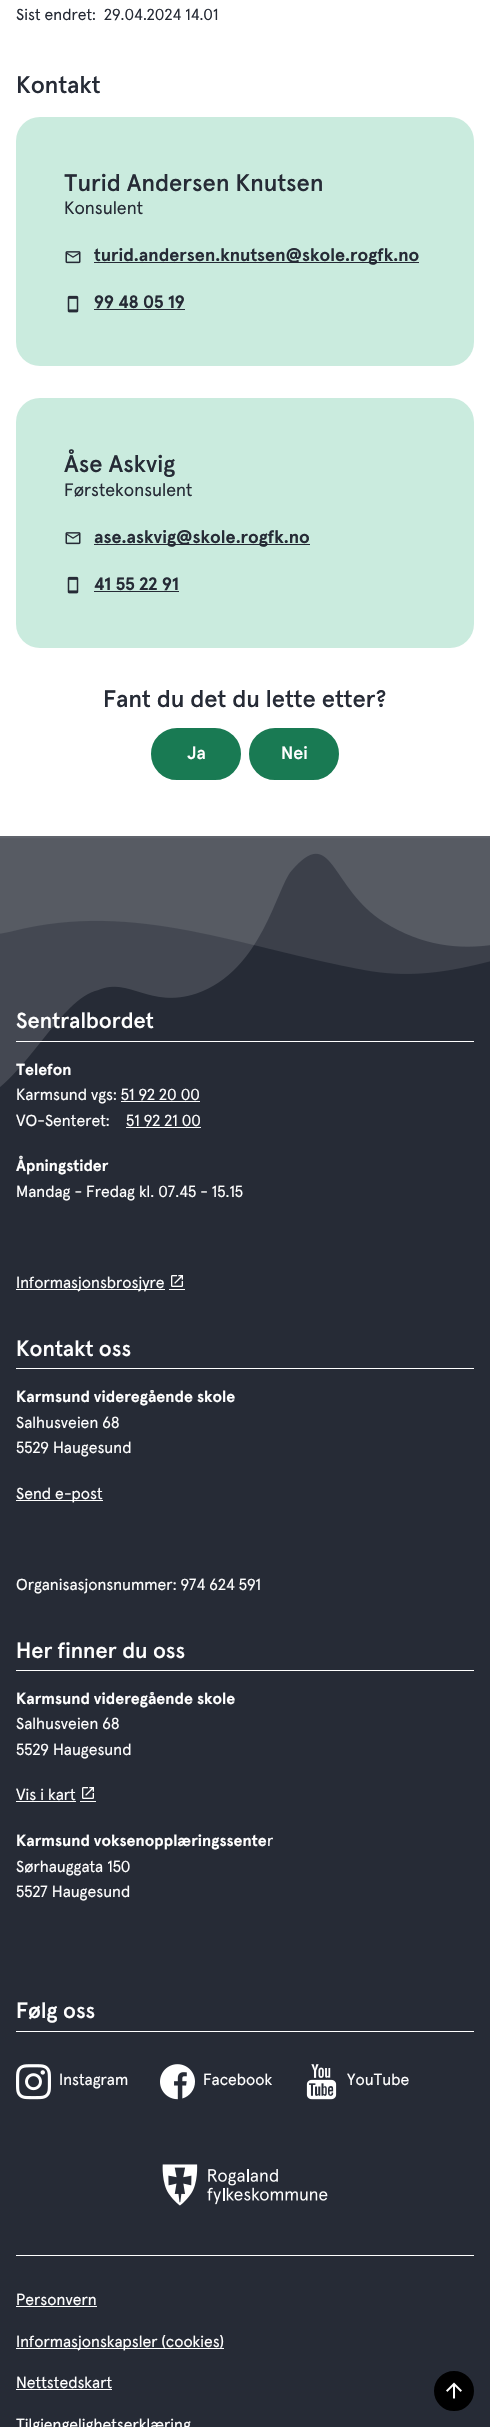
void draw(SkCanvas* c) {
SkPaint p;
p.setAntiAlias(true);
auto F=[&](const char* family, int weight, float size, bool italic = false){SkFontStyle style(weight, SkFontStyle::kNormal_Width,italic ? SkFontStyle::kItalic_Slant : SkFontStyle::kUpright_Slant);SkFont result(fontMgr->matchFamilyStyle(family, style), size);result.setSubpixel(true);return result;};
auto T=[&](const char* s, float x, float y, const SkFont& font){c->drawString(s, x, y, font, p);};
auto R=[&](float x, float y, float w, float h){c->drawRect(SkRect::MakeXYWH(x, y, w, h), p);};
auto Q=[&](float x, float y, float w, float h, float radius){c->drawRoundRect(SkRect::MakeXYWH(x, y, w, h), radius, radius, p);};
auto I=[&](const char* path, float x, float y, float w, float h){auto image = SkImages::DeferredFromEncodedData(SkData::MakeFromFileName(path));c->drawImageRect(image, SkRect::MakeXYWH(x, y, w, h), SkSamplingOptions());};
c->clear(0xffffffff);
auto f1 = F("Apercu",400,16);
p.setColor(0xff262b36);
T("Sist endret:",16,20,f1);
T("29.04.2024 14.01",104,20,f1);
auto f2 = F("Apercu",500,24);
T("Kontakt",16,93,f2);
p.setColor(0xffcaebde);
Q(16,117,458,249,24);
p.setColor(0xff262b36);
T("Turid Andersen Knutsen",64,191,f2);
auto f3 = F("Apercu",400,18);
T("Konsulent",64,214,f3);
I("1.png",65,251,16,13);
R(94,262,325,1);
auto f4 = F("Apercu",700,18);
T("turid.andersen.knutsen@skole.rogfk.no",94,261,f4);
I("2.png",67,295,12,18);
T("99 48 05 19",94,308,f4);
R(94,309,91,1);
p.setColor(0xffcaebde);
Q(16,398,458,250,24);
p.setColor(0xff262b36);
T("Åse Askvig",64,472,f2);
T("Førstekonsulent",64,496,f3);
I("1.png",65,532,16,13);
R(94,544,216,1);
T("ase.askvig@skole.rogfk.no",94,543,f4);
I("2.png",67,576,12,18);
T("41 55 22 91",94,590,f4);
R(94,591,85,1);
T("Fant du det du lette etter?",103,707,f2);
p.setColor(0xff197a53);
c->drawRoundRect(SkRect::MakeXYWH(152,729,88,50),25,25,p);
p.setStroke(true);
p.setStrokeWidth(2);
c->drawRoundRect(SkRect::MakeXYWH(152,729,88,50),25,25,p);
auto f5 = F("Apercu",500,18);
p.setStroke(false);
p.setColor(0xffffffff);
T("Ja",187,759,f5);
p.setColor(0xff197a53);
c->drawRoundRect(SkRect::MakeXYWH(250,729,88,50),25,25,p);
p.setStroke(true);
c->drawRoundRect(SkRect::MakeXYWH(250,729,88,50),25,25,p);
p.setStroke(false);
p.setColor(0xffffffff);
T("Nei",281,759,f5);
p.setColor(0xff262b36);
R(0,836,490,1591);
I("3.png",0,836,490,251);
p.setColor(0xffffffff);
R(16,1041,458,1);
auto f6 = F("Apercu",500,22);
T("Sentralbordet",16,1028,f6);
auto f7 = F("Apercu",700,16);
T("Telefon",16,1075,f7);
T("Karmsund vgs: 51 92 20 00",16,1100,f1);
R(121,1101,79,1);
T("VO-Senteret:",16,1126,f1);
T("51 92 21 00",126,1126,f1);
R(126,1127,75,1);
T("Åpningstider",16,1171,f7);
T("Mandag - Fredag kl. 07.45 - 15.15",16,1197,f1);
R(16,1289,149,1);
T("Informasjonsbrosjyre",16,1288,f1);
R(169,1289,16,1);
I("4.png",171,1275,12,12);
R(16,1368,458,1);
T("Kontakt oss",16,1356,f6);
T("Karmsund videregående skole",16,1402,f7);
T("Salhusveien 68",16,1428,f1);
T("5529 Haugesund",16,1453,f1);
R(16,1500,87,1);
T("Send e-post",16,1499,f1);
T("Organisasjonsnummer: 974 624 591",16,1590,f1);
R(16,1670,458,1);
T("Her finner du oss",16,1658,f6);
T("Karmsund videregående skole",16,1704,f7);
T("Salhusveien 68",16,1729,f1);
T("5529 Haugesund",16,1755,f1);
T("Vis i kart",16,1800,f1);
R(16,1801,60,1);
R(80,1801,16,1);
I("4.png",82,1787,12,12);
T("Karmsund voksenopplæringssente",16,1846,f7);
T("r",267,1846,f1);
T("Sørhauggata 150",16,1872,f1);
T("5527 Haugesund",16,1897,f1);
R(16,2031,458,1);
T("Følg oss",16,2018,f6);
I("5.png",16,2064,35,36);
T("Instagram",59,2085,f1);
I("6.png",160,2064,35,36);
T("Facebook",203,2085,f1);
I("7.png",306,2064,31,36);
T("YouTube",347,2085,f1);
I("8.png",162,2164,166,42);
R(16,2255,458,1);
T("Personvern",16,2305,f1);
R(16,2306,81,1);
R(16,2348,208,1);
T("Informasjonskapsler (cookies)",16,2347,f1);
T("Nettstedskart",16,2388,f1);
R(16,2389,96,1);
T("Tilgjengelighetserklæring",16,2430,f1);
p.setColor(0xff000000);
c->drawCircle(454,2391,19,p);
p.setStroke(true);
c->drawCircle(454,2391,19,p);
I("9.png",446,2382,16,17);
}
